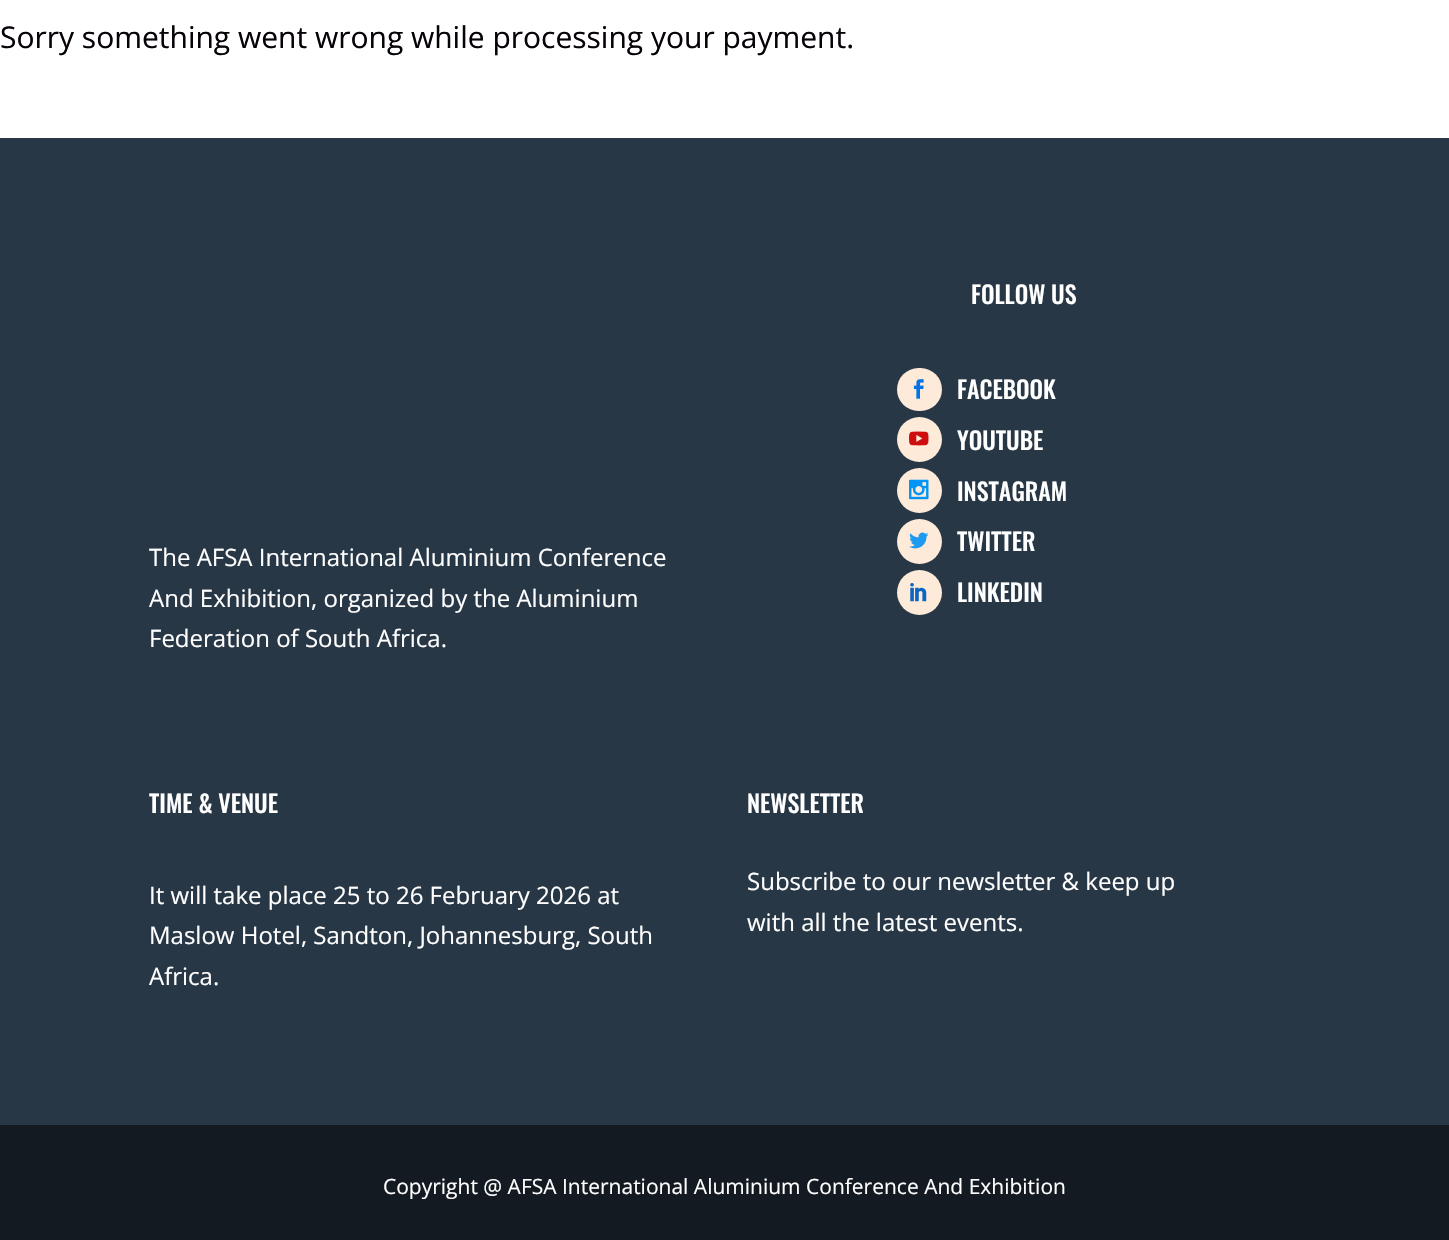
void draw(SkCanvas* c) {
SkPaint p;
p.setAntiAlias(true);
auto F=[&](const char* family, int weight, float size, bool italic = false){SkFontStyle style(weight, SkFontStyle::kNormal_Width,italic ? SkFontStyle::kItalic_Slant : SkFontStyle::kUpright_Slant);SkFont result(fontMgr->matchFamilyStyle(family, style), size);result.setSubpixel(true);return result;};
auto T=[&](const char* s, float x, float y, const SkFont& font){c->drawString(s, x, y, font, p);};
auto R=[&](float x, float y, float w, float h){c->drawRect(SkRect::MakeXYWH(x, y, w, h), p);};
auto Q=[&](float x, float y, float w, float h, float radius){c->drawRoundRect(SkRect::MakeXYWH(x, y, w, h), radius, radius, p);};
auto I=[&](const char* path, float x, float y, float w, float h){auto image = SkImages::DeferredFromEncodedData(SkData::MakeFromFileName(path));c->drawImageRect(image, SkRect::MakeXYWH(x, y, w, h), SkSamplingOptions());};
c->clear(0xffffffff);
auto f1 = F("Open Sans",400,30);
p.setColor(0xff070108);
T("Sorry something went wrong while processing your payment.",0,48,f1);
p.setColor(0xff283746);
R(0,138,1449,987);
auto f2 = F("Open Sans",400,24);
p.setColor(0xffffffff);
T("The AFSA International Aluminium Conference",149,566,f2);
T("And Exhibition, organized by the Aluminium",149,607,f2);
T("Federation of South Africa.",149,647,f2);
auto f3 = F("Oswald",500,24);
T("FOLLOW US",971,304,f3);
p.setColor(0xfffdead9);
Q(897,368,45,43,21.5);
I("1.png",913,379,11,20);
p.setColor(0xffffffff);
T("FACEBOOK",957,399,f3);
p.setColor(0xfffdead9);
c->drawCircle(919.5,439.5,22.5,p);
I("2.png",909,431,20,15);
p.setColor(0xffffffff);
T("YOUTUBE",957,450,f3);
p.setColor(0xfffdead9);
c->drawCircle(919.5,490.5,22.5,p);
I("3.png",909,479,20,21);
p.setColor(0xffffffff);
T("INSTAGRAM",957,501,f3);
p.setColor(0xfffdead9);
c->drawCircle(919.5,541.5,22.5,p);
I("4.png",909,532,20,17);
p.setColor(0xffffffff);
T("TWITTER",957,551,f3);
p.setColor(0xfffdead9);
c->drawCircle(919.5,592.5,22.5,p);
I("5.png",910,583,17,19);
p.setColor(0xffffffff);
T("LINKEDIN",957,602,f3);
T("TIME & VENUE",149,813,f3);
T("It will take place 25 to 26 February 2026 at",149,904,f2);
T("Maslow Hotel, Sandton, Johannesburg, South",149,944,f2);
T("Africa.",149,985,f2);
T("NEWSLETTER",747,813,f3);
T("Subscribe to our newsletter & keep up",747,890,f2);
T("with all the latest events.",747,931,f2);
p.setColor(0xff131a22);
R(0,1125,1449,115);
auto f4 = F("Open Sans",400,21);
p.setColor(0xffffffff);
T("Copyright @ AFSA International Aluminium Conference And Exhibition",383,1194,f4);
}
